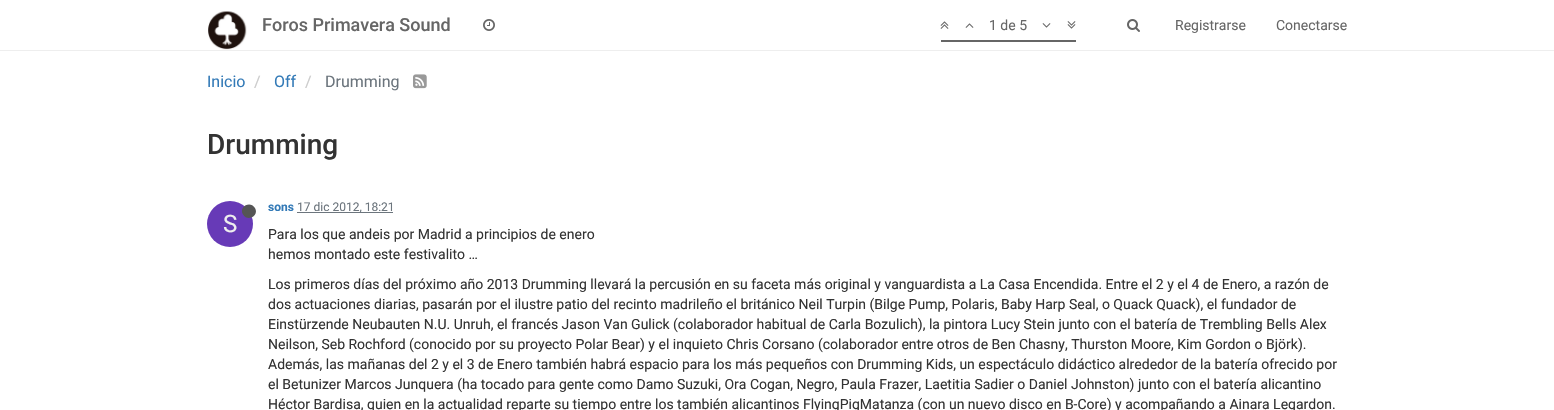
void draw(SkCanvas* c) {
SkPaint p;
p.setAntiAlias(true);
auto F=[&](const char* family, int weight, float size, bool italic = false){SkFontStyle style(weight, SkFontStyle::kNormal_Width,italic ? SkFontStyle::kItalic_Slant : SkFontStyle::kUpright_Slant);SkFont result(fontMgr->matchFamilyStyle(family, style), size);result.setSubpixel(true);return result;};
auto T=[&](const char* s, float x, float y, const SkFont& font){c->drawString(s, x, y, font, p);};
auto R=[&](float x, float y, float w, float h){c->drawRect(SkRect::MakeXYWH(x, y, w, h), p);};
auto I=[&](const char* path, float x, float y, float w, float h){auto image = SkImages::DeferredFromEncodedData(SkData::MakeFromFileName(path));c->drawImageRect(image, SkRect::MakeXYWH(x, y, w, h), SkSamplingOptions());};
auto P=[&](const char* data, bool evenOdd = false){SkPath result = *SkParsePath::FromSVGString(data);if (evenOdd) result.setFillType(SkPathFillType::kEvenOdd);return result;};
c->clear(0xffffffff);
p.setColor(0xffeeeeee);
R(0,50,1554,1);
I("1.png",208,11,39,39);
auto f1 = F("Roboto",500,18);
p.setColor(0xff666666);
T("Foros Primavera Sound",262,31,f1);
I("2.png",483,19,12,12);
I("3.png",940,21,9,8);
I("4.png",965,23,9,5);
auto f2 = F("Roboto",400,14);
T("1 de 5",989,30,f2);
I("5.png",1042,23,9,5);
I("6.png",1067,21,9,8);
R(941,40,135,2);
I("7.png",1127,19,13,13);
T("Registrarse",1175,30,f2);
T("Conectarse",1276,30,f2);
auto f3 = F("Roboto",400,16);
p.setColor(0xff337ab7);
T("Inicio",207,87,f3);
p.setColor(0xffcccccc);
T("/",254,87,f3);
p.setColor(0xff337ab7);
T("Off",274,87,f3);
p.setColor(0xffcccccc);
T("/",305,87,f3);
p.setColor(0xff6c757d);
T("Drumming",325,87,f3);
I("8.png",413,74,14,15);
auto f4 = F("Roboto",500,28);
p.setColor(0xff333333);
T("Drumming",207,154,f4);
auto f5 = F("Roboto",700,12);
p.setColor(0xff337ab7);
T("sons",268,211,f5);
p.setColor(0xff6c757d);
R(297,212,96,1);
auto f6 = F("Roboto",400,12);
T("17 dic 2012, 18:21",297,211,f6);
p.setColor(0xff673ab7);
c->drawCircle(230,224,23,p);
p.setColor(0xff555555);
c->drawPath(P("M255 208c4.5 7.5-7.5 14.5-12 6.5c-4.5-7.5 7-14.5 12-6.5z"),p);
auto f7 = F("Roboto",400,24);
p.setColor(0xffeeeeee);
T("S",223,232,f7);
p.setColor(0xff333333);
T("Para los que andeis por Madrid a principios de enero",268,239,f2);
T("hemos montado este festivalito …",268,259,f2);
T("Los primeros días del próximo año 2013 Drumming llevará la percusión en su faceta más original y vanguardista a La Casa Encendida. Entre el 2 y el 4 de Enero, a razón de",268,289,f2);
T("dos actuaciones diarias, pasarán por el ilustre patio del recinto madrileño el británico Neil Turpin (Bilge Pump, Polaris, Baby Harp Seal, o Quack Quack), el fundador de",268,309,f2);
T("Einstürzende Neubauten N.U. Unruh, el francés Jason Van Gulick (colaborador habitual de Carla Bozulich), la pintora Lucy Stein junto con el batería de Trembling Bells Alex",268,329,f2);
T("Neilson, Seb Rochford (conocido por su proyecto Polar Bear) y el inquieto Chris Corsano (colaborador entre otros de Ben Chasny, Thurston Moore, Kim Gordon o Björk).",268,349,f2);
T("Además, las mañanas del 2 y el 3 de Enero también habrá espacio para los más pequeños con Drumming Kids, un espectáculo didáctico alrededor de la batería ofrecido por",268,369,f2);
T("el Betunizer Marcos Junquera (ha tocado para gente como Damo Suzuki, Ora Cogan, Negro, Paula Frazer, Laetitia Sadier o Daniel Johnston) junto con el batería alicantino",268,389,f2);
T("Héctor Bardisa, quien en la actualidad reparte su tiempo entre los también alicantinos FlyingPigMatanza (con un nuevo disco en B-Core) y acompañando a Ainara Legardon.",268,409,f2);
}
